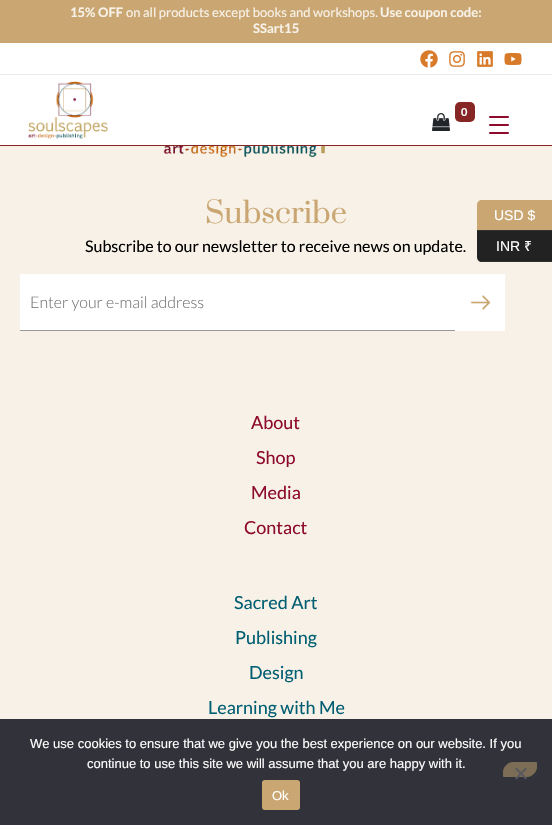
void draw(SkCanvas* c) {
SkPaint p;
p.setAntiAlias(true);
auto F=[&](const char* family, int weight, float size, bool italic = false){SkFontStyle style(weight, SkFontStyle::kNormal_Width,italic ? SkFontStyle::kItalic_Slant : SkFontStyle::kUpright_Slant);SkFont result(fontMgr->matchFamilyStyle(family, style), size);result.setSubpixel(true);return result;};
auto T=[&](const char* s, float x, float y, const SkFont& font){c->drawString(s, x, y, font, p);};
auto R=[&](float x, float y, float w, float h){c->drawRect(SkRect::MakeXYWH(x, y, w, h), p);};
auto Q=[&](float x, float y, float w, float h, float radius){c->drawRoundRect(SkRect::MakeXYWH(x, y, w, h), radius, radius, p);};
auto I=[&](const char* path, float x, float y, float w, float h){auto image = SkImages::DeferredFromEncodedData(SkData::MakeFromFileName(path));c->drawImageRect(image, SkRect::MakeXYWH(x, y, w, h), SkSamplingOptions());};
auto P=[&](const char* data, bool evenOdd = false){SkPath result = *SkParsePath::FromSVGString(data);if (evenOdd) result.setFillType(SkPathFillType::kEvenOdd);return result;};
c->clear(0xfff7f1e7);
p.setColor(0xffffffff);
R(0,43,552,102);
p.setColor(0xffcaa772);
R(0,0,552,43);
auto f1 = F("Lato",700,13);
p.setColor(0xfff7f1e7);
T("15% OFF",70,17,f1);
auto f2 = F("Lato",400,13);
T("on all products except books and workshops.",126,17,f2);
T("Use coupon code:",380,17,f1);
T("SSart15",253,33,f1);
p.setColor(0xffebebeb);
R(0,74,552,1);
I("1.png",420,50,18,18);
I("2.png",449,51,16,16);
I("3.png",477,51,16,16);
I("4.png",504,53,18,12);
p.setColor(0xff862625);
R(0,145,552,1);
I("5.png",28,81,80,59);
Q(455,102,20,20,5);
auto f3 = F("Lato",700,11);
p.setColor(0xffffffff);
T("0",461,116,f3);
I("6.png",432,113,18,18);
p.setColor(0xff8d0a2c);
Q(489,124,20,2,1);
Q(489,116,20,2,1);
Q(489,132,20,2,1);
I("7.png",163,146,162,12);
auto f4 = F("Prata",400,29);
p.setColor(0xffcaa772);
T("Subscribe",205,223,f4);
auto f5 = F("Lato",400,16);
p.setColor(0xff000000);
T("Subscribe to our newsletter to receive news on update.",85,252,f5);
p.setColor(0xffffffff);
R(20,274,435,56);
p.setColor(0xff999999);
R(20,330,435,1);
auto f6 = F("Lato",300,16);
p.setColor(0xff757575);
T("Enter your e-mail address",30,308,f6);
p.setColor(0xffffffff);
R(455,274,50,57);
I("8.png",470,295,21,15);
auto f7 = F("Lato",400,18);
p.setColor(0xff8d0a2c);
T("About",251,429,f7);
T("Shop",256,464,f7);
T("Media",251,499,f7);
T("Contact",244,534,f7);
p.setColor(0xff005e72);
T("Sacred Art",234,609,f7);
T("Publishing",235,644,f7);
T("Design",249,679,f7);
T("Learning with Me",208,714,f7);
p.setColor(0xffc9a672);
c->drawPath(P("M482 200h70v31h-75v-26c0-3 2-5 5-5z"),p);
p.setColor(0xff333333);
R(477,230,75,1);
auto f8 = F("Liberation Sans",400,14);
p.setColor(0xffffffff);
T("USD $",494,220,f8);
p.setColor(0xff222222);
c->drawPath(P("M477 231h75v31h-70c-3 0-5-2-5-5z"),p);
p.setColor(0xff333333);
R(480,261,72,1);
p.setColor(0xffffffff);
T("INR",496,251,f8);
auto f9 = F("Noto Sans",400,14);
T("₹",524,251,f9);
p.setColor(0xff32323a);
R(0,719,552,106);
auto f10 = F("Liberation Sans",400,13);
p.setColor(0xffffffff);
T("We use cookies to ensure that we give you the best experience on our website. If you",30,748,f10);
T("continue to use this site we will assume that you are happy with it.",87,768,f10);
p.setColor(0xff7e6d56);
c->drawPath(P("M513 762.5h23.5v4.5c0 5-4.5 9.5-9.5 9.5h-23.5v-4.5c0-5 4.5-9.5 9.5-9.5z"),p);
p.setStroke(true);
p.setStrokeWidth(1);
c->drawPath(P("M513 762.5h23.5v4.5c0 5-4.5 9.5-9.5 9.5h-23.5v-4.5c0-5 4.5-9.5 9.5-9.5z"),p);
p.setStroke(false);
p.setColor(0xff59595d);
c->drawPath(P("M525.5 767.5l1.5 1.5l-10.5 10.5l-1.5-1.5z"),p);
c->drawPath(P("M515 769l1.5-1.5l10.5 10.5l-1.5 1.5z"),p);
p.setColor(0xffcaa772);
Q(262,780,38,30,3);
p.setColor(0xffffffff);
T("Ok",272,800,f10);
}
